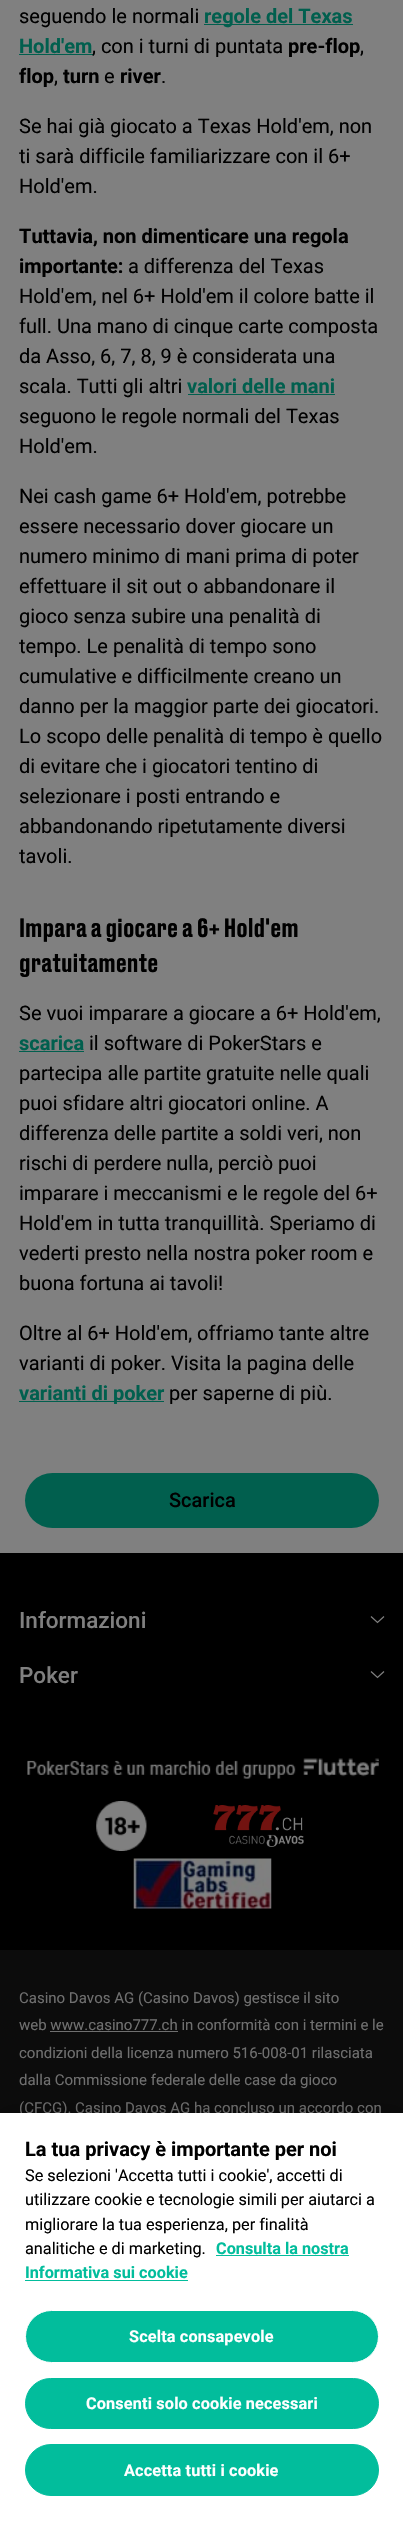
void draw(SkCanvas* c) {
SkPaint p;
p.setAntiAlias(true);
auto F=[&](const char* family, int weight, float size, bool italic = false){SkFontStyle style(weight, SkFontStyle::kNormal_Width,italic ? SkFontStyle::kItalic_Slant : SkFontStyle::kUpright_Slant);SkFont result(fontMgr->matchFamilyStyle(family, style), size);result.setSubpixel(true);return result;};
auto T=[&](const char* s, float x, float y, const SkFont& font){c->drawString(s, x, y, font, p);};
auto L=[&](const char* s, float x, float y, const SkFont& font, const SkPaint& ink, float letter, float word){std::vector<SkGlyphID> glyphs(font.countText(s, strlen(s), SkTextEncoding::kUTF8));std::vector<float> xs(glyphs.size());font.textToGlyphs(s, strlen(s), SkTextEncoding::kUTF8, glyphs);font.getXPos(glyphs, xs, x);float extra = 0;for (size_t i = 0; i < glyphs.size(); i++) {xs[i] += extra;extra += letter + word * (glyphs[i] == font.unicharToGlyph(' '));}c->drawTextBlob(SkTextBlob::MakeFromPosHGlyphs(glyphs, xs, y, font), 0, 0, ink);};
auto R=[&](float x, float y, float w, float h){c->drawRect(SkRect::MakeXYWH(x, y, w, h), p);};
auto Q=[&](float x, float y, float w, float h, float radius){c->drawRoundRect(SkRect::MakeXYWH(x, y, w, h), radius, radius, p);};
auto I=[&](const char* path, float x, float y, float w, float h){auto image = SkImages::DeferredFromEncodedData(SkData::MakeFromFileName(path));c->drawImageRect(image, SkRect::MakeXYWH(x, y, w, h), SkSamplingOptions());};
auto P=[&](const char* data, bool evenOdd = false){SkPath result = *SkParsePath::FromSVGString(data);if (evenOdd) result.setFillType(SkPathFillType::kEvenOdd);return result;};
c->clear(0xff000000);
p.setColor(0xff808080);
R(0,0,403,1553);
auto f1 = F("Roboto",400,20);
p.setColor(0xff000000);
T("seguendo le normali",19,23,f1);
p.setColor(0xff015f4e);
R(204,24,149,1);
auto f2 = F("Roboto",700,20);
T("regole del Texas",204,23,f2);
T("Hold'em",19,53,f2);
R(19,54,74,1);
p.setColor(0xff000000);
T(", con i turni di puntata",92,53,f1);
T("pre-flop",288,53,f2);
T(",",360,53,f1);
T("flop",19,83,f2);
T(",",54,83,f1);
T("turn",63,83,f2);
T("e",104,83,f1);
T("river",120,83,f2);
T(".",161,83,f1);
T("Se hai già giocato a Texas Hold'em, non",19,133,f1);
T("ti sarà difficile familiarizzare con il 6+",19,163,f1);
T("Hold'em.",19,193,f1);
T("Tuttavia, non dimenticare una regola",19,243,f2);
T("importante:",19,273,f2);
T("a differenza del Texas",128,273,f1);
T("Hold'em, nel 6+ Hold'em il colore batte il",19,303,f1);
T("full. Una mano di cinque carte composta",19,333,f1);
T("da Asso, 6, 7, 8, 9 è considerata una",19,363,f1);
T("scala. Tutti gli altri",19,393,f1);
p.setColor(0xff015f4e);
T("valori delle mani",187,393,f2);
R(188,394,147,1);
p.setColor(0xff000000);
T("seguono le regole normali del Texas",19,423,f1);
T("Hold'em.",19,453,f1);
T("Nei cash game 6+ Hold'em, potrebbe",19,503,f1);
T("essere necessario dover giocare un",19,533,f1);
T("numero minimo di mani prima di poter",19,563,f1);
T("effettuare il sit out o abbandonare il",19,593,f1);
T("gioco senza subire una penalità di",19,623,f1);
T("tempo. Le penalità di tempo sono",19,653,f1);
T("cumulative e difficilmente creano un",19,683,f1);
T("danno per la maggior parte dei giocatori.",19,713,f1);
T("Lo scopo delle penalità di tempo è quello",19,743,f1);
T("di evitare che i giocatori tentino di",19,773,f1);
T("selezionare i posti entrando e",19,803,f1);
T("abbandonando ripetutamente diversi",19,833,f1);
T("tavoli.",19,863,f1);
auto f3 = F("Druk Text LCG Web",500,25);
T("Impara a giocare a 6+ Hold'em",19,937,f3);
T("gratuitamente",19,972,f3);
T("Se vuoi imparare a giocare a 6+ Hold'em,",19,1020,f1);
p.setColor(0xff015f4e);
T("scarica",19,1050,f2);
R(19,1051,65,1);
p.setColor(0xff000000);
T("il software di PokerStars e",89,1050,f1);
T("partecipa alle partite gratuite nelle quali",19,1080,f1);
T("puoi sfidare altri giocatori online. A",19,1110,f1);
T("differenza delle partite a soldi veri, non",19,1140,f1);
T("rischi di perdere nulla, perciò puoi",19,1170,f1);
T("imparare i meccanismi e le regole del 6+",19,1200,f1);
T("Hold'em in tutta tranquillità. Speriamo di",19,1230,f1);
T("vederti presto nella nostra poker room e",19,1260,f1);
T("buona fortuna ai tavoli!",19,1290,f1);
T("Oltre al 6+ Hold'em, offriamo tante altre",19,1340,f1);
T("varianti di poker. Visita la pagina delle",19,1370,f1);
p.setColor(0xff015f4e);
R(19,1401,145,1);
T("varianti di poker",19,1400,f2);
p.setColor(0xff000000);
T("per saperne di più.",169,1400,f1);
p.setColor(0xff015f4e);
Q(25,1473,354,55,27.5);
auto f4 = F("Roboto",500,20);
p.setColor(0xff000000);
T("Scarica",169,1507,f4);
auto f5 = F("Roboto",500,22.5);
p.setColor(0xff808080);
T("Informazioni",19,1628,f5);
p.setStroke(true);
p.setStrokeWidth(1.2);
c->drawPath(P("M384 1616.5l-6.5 6l-6.5-6m13 55l-6.5 6l-6.5-6"),p);
p.setStroke(false);
T("Poker",19,1683,f5);
I("1.png",27,1758,352,21);
I("2.png",96,1801,51,50);
I("3.png",213,1805,91,42);
I("4.png",133,1858,139,51);
p.setColor(0xff0c0c0c);
R(0,1950,403,163);
auto f6 = F("Roboto",400,15);
p.setColor(0xff6f6f6f);
T("Casino Davos AG (Casino Davos) gestisce il sito",19,2003,f6);
T("web www.casino777.ch in conformità con i termini e le",19,2030,f6);
R(50,2031,128,1);
T("condizioni della licenza numero 516-008-01 rilasciata",19,2058,f6);
T("dalla Commissione federale delle case da gioco",19,2085,f6);
T("(CFCG). Casino Davos AG ha concluso un accordo con",19,2113,f6);
p.setColor(0x33000000);
p.setMaskFilter(SkMaskFilter::MakeBlur(kNormal_SkBlurStyle, 11));
c->drawRect(SkRect::MakeXYWH(0,2113,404,408),p);
p.setMaskFilter(nullptr);
p.setColor(0xffffffff);
R(0,2113,403,408);
p.setColor(0xff000000);
T("La tua privacy è importante per noi",25,2156,f2);
auto f7 = F("Roboto",400,16.25);
T("Se selezioni 'Accetta tutti i cookie', accetti di",25,2181,f7);
T("utilizzare cookie e tecnologie simili per aiutarci a",25,2205,f7);
T("migliorare la tua esperienza, per finalità",25,2230,f7);
T("analitiche e di marketing.",25,2254,f7);
auto f8 = F("Roboto",700,16.25);
p.setColor(0xff02bd9c);
T("Consulta la nostra",216,2254,f8);
R(216,2255,133,1);
T("Informativa sui cookie",25,2278,f8);
R(25,2280,163,1);
c->drawRoundRect(SkRect::MakeXYWH(25.5,2310.5,353,52),26,26,p);
p.setStroke(true);
p.setStrokeWidth(1);
p.setColor(0xffffffff);
c->drawRoundRect(SkRect::MakeXYWH(25.5,2310.5,353,52),26,26,p);
p.setStroke(false);
L("Scelta consapevole",129,2342,f8,p,.15,0);
p.setColor(0xff02bd9c);
c->drawRoundRect(SkRect::MakeXYWH(25.5,2378.5,353,50),25,25,p);
p.setStroke(true);
c->drawRoundRect(SkRect::MakeXYWH(25.5,2378.5,353,50),25,25,p);
p.setStroke(false);
p.setColor(0xffffffff);
L("Consenti solo cookie necessari",86,2409,f8,p,.15,0);
p.setColor(0xff02bd9c);
c->drawRoundRect(SkRect::MakeXYWH(25.5,2444.5,353,51),25.5,25.5,p);
p.setStroke(true);
c->drawRoundRect(SkRect::MakeXYWH(25.5,2444.5,353,51),25.5,25.5,p);
p.setStroke(false);
p.setColor(0xffffffff);
L("Accetta tutti i cookie",124,2476,f8,p,.15,0);
}
